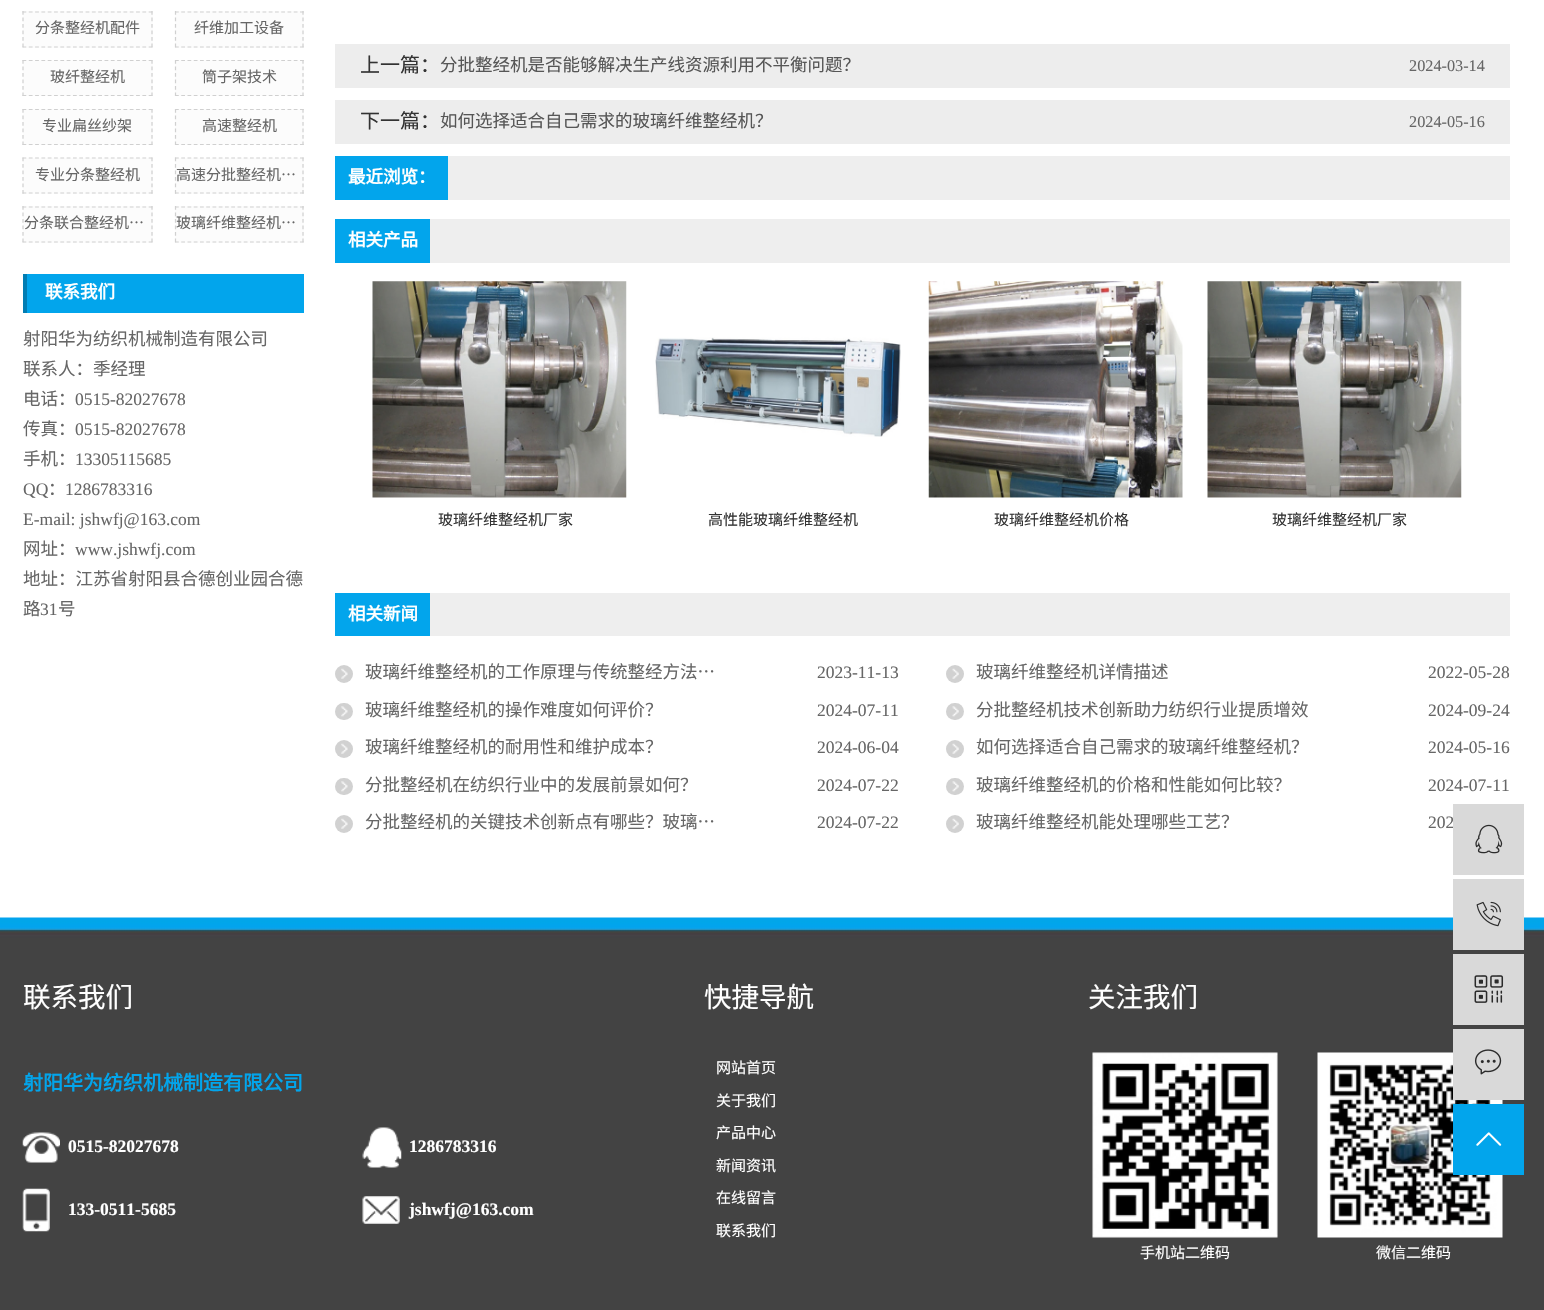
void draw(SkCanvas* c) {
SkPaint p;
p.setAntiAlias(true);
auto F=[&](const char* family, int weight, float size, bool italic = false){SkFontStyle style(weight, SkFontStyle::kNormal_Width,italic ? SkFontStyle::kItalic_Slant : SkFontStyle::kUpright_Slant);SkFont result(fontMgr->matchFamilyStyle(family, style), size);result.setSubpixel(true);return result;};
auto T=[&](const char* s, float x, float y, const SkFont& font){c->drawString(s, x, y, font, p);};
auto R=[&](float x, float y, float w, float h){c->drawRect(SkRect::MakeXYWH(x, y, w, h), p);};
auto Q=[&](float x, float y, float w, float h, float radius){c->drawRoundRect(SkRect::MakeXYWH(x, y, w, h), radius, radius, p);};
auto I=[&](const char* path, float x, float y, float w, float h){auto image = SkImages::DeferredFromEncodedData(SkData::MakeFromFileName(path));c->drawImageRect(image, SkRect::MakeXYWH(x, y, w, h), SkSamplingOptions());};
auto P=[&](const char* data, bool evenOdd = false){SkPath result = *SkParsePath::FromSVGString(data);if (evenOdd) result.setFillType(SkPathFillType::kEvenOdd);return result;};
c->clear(0xffffffff);
p.setColor(0xfffcfcfc);
R(23,11,130,37);
p.setStroke(true);
p.setStrokeWidth(1.2);
p.setColor(0xffd0d0d0);
p.setPathEffect(SkDashPathEffect::Make({{3.75f,2.56f}}, 0));
c->drawPath(P("M22.5 12h130"),p);
p.setPathEffect(nullptr);
p.setPathEffect(SkDashPathEffect::Make({{3.75f,2.75f}}, 0));
c->drawPath(P("M152 11v36.5"),p);
p.setPathEffect(nullptr);
p.setPathEffect(SkDashPathEffect::Make({{3.75f,2.56f}}, 0));
c->drawPath(P("M22.5 47h130"),p);
p.setPathEffect(nullptr);
p.setPathEffect(SkDashPathEffect::Make({{3.75f,2.75f}}, 0));
c->drawPath(P("M23 11v36.5"),p);
p.setPathEffect(nullptr);
auto f1 = F("Noto Sans CJK SC",400,15);
p.setStroke(false);
p.setColor(0xff666666);
T("分条整经机配件",35,33,f1);
p.setColor(0xfffcfcfc);
R(175,11,129,37);
p.setStroke(true);
p.setColor(0xffd0d0d0);
p.setPathEffect(SkDashPathEffect::Make({{3.75f,2.5f}}, 0));
c->drawPath(P("M175 12h129"),p);
p.setPathEffect(nullptr);
p.setPathEffect(SkDashPathEffect::Make({{3.75f,2.75f}}, 0));
c->drawPath(P("M303 11v36.5"),p);
p.setPathEffect(nullptr);
p.setPathEffect(SkDashPathEffect::Make({{3.75f,2.5f}}, 0));
c->drawPath(P("M175 47h129"),p);
p.setPathEffect(nullptr);
p.setPathEffect(SkDashPathEffect::Make({{3.75f,2.75f}}, 0));
c->drawPath(P("M175.5 11v36.5"),p);
p.setPathEffect(nullptr);
p.setStroke(false);
p.setColor(0xff666666);
T("纤维加工设备",194,33,f1);
p.setColor(0xfffcfcfc);
R(23,60,130,36);
p.setStroke(true);
p.setColor(0xffd0d0d0);
p.setPathEffect(SkDashPathEffect::Make({{3.75f,2.56f}}, 0));
c->drawPath(P("M22.5 60.5h130"),p);
p.setPathEffect(nullptr);
p.setPathEffect(SkDashPathEffect::Make({{3.75f,2.75f}}, 0));
c->drawPath(P("M152 60v36"),p);
p.setPathEffect(nullptr);
p.setPathEffect(SkDashPathEffect::Make({{3.75f,2.56f}}, 0));
c->drawPath(P("M22.5 95.5h130"),p);
p.setPathEffect(nullptr);
p.setPathEffect(SkDashPathEffect::Make({{3.75f,2.75f}}, 0));
c->drawPath(P("M23 60v36"),p);
p.setPathEffect(nullptr);
p.setStroke(false);
p.setColor(0xff666666);
T("玻纤整经机",50,82,f1);
p.setColor(0xfffcfcfc);
R(175,60,129,36);
p.setStroke(true);
p.setColor(0xffd0d0d0);
p.setPathEffect(SkDashPathEffect::Make({{3.75f,2.5f}}, 0));
c->drawPath(P("M175 60.5h129"),p);
p.setPathEffect(nullptr);
p.setPathEffect(SkDashPathEffect::Make({{3.75f,2.75f}}, 0));
c->drawPath(P("M303 60v36"),p);
p.setPathEffect(nullptr);
p.setPathEffect(SkDashPathEffect::Make({{3.75f,2.5f}}, 0));
c->drawPath(P("M175 95.5h129"),p);
p.setPathEffect(nullptr);
p.setPathEffect(SkDashPathEffect::Make({{3.75f,2.75f}}, 0));
c->drawPath(P("M175.5 60v36"),p);
p.setPathEffect(nullptr);
p.setStroke(false);
p.setColor(0xff666666);
T("筒子架技术",202,82,f1);
p.setColor(0xfffcfcfc);
R(23,109,130,36);
p.setStroke(true);
p.setColor(0xffd0d0d0);
p.setPathEffect(SkDashPathEffect::Make({{3.75f,2.56f}}, 0));
c->drawPath(P("M22.5 109.5h130"),p);
p.setPathEffect(nullptr);
p.setPathEffect(SkDashPathEffect::Make({{3.75f,2.75f}}, 0));
c->drawPath(P("M152 109v36"),p);
p.setPathEffect(nullptr);
p.setPathEffect(SkDashPathEffect::Make({{3.75f,2.56f}}, 0));
c->drawPath(P("M22.5 144.5h130"),p);
p.setPathEffect(nullptr);
p.setPathEffect(SkDashPathEffect::Make({{3.75f,2.75f}}, 0));
c->drawPath(P("M23 109v36"),p);
p.setPathEffect(nullptr);
p.setStroke(false);
p.setColor(0xff666666);
T("专业扁丝纱架",42,131,f1);
p.setColor(0xfffcfcfc);
R(175,109,129,36);
p.setStroke(true);
p.setColor(0xffd0d0d0);
p.setPathEffect(SkDashPathEffect::Make({{3.75f,2.5f}}, 0));
c->drawPath(P("M175 109.5h129"),p);
p.setPathEffect(nullptr);
p.setPathEffect(SkDashPathEffect::Make({{3.75f,2.75f}}, 0));
c->drawPath(P("M303 109v36"),p);
p.setPathEffect(nullptr);
p.setPathEffect(SkDashPathEffect::Make({{3.75f,2.5f}}, 0));
c->drawPath(P("M175 144.5h129"),p);
p.setPathEffect(nullptr);
p.setPathEffect(SkDashPathEffect::Make({{3.75f,2.75f}}, 0));
c->drawPath(P("M175.5 109v36"),p);
p.setPathEffect(nullptr);
p.setStroke(false);
p.setColor(0xff666666);
T("高速整经机",202,131,f1);
p.setColor(0xfffcfcfc);
R(23,158,130,36);
p.setStroke(true);
p.setColor(0xffd0d0d0);
p.setPathEffect(SkDashPathEffect::Make({{3.75f,2.56f}}, 0));
c->drawPath(P("M22.5 158h130"),p);
p.setPathEffect(nullptr);
p.setPathEffect(SkDashPathEffect::Make({{3.75f,2.75f}}, 0));
c->drawPath(P("M152 157.5v36.5"),p);
p.setPathEffect(nullptr);
p.setPathEffect(SkDashPathEffect::Make({{3.75f,2.56f}}, 0));
c->drawPath(P("M22.5 193h130"),p);
p.setPathEffect(nullptr);
p.setPathEffect(SkDashPathEffect::Make({{3.75f,2.75f}}, 0));
c->drawPath(P("M23 157.5v36.5"),p);
p.setPathEffect(nullptr);
p.setStroke(false);
p.setColor(0xff666666);
T("专业分条整经机",35,180,f1);
p.setColor(0xfffcfcfc);
R(175,158,129,36);
p.setStroke(true);
p.setColor(0xffd0d0d0);
p.setPathEffect(SkDashPathEffect::Make({{3.75f,2.5f}}, 0));
c->drawPath(P("M175 158h129"),p);
p.setPathEffect(nullptr);
p.setPathEffect(SkDashPathEffect::Make({{3.75f,2.75f}}, 0));
c->drawPath(P("M303 157.5v36.5"),p);
p.setPathEffect(nullptr);
p.setPathEffect(SkDashPathEffect::Make({{3.75f,2.5f}}, 0));
c->drawPath(P("M175 193h129"),p);
p.setPathEffect(nullptr);
p.setPathEffect(SkDashPathEffect::Make({{3.75f,2.75f}}, 0));
c->drawPath(P("M175.5 157.5v36.5"),p);
p.setPathEffect(nullptr);
p.setStroke(false);
p.setColor(0xff666666);
T("高速分批整经机…",176,180,f1);
p.setColor(0xfffcfcfc);
R(23,206,130,37);
p.setStroke(true);
p.setColor(0xffd0d0d0);
p.setPathEffect(SkDashPathEffect::Make({{3.75f,2.56f}}, 0));
c->drawPath(P("M22.5 207h130"),p);
p.setPathEffect(nullptr);
p.setPathEffect(SkDashPathEffect::Make({{3.75f,2.75f}}, 0));
c->drawPath(P("M152 206v36.5"),p);
p.setPathEffect(nullptr);
p.setPathEffect(SkDashPathEffect::Make({{3.75f,2.56f}}, 0));
c->drawPath(P("M22.5 242h130"),p);
p.setPathEffect(nullptr);
p.setPathEffect(SkDashPathEffect::Make({{3.75f,2.75f}}, 0));
c->drawPath(P("M23 206v36.5"),p);
p.setPathEffect(nullptr);
p.setStroke(false);
p.setColor(0xff666666);
T("分条联合整经机…",24,228,f1);
p.setColor(0xfffcfcfc);
R(175,206,129,37);
p.setStroke(true);
p.setColor(0xffd0d0d0);
p.setPathEffect(SkDashPathEffect::Make({{3.75f,2.5f}}, 0));
c->drawPath(P("M175 207h129"),p);
p.setPathEffect(nullptr);
p.setPathEffect(SkDashPathEffect::Make({{3.75f,2.75f}}, 0));
c->drawPath(P("M303 206v36.5"),p);
p.setPathEffect(nullptr);
p.setPathEffect(SkDashPathEffect::Make({{3.75f,2.5f}}, 0));
c->drawPath(P("M175 242h129"),p);
p.setPathEffect(nullptr);
p.setPathEffect(SkDashPathEffect::Make({{3.75f,2.75f}}, 0));
c->drawPath(P("M175.5 206v36.5"),p);
p.setPathEffect(nullptr);
p.setStroke(false);
p.setColor(0xff666666);
T("玻璃纤维整经机…",176,228,f1);
p.setColor(0xff02a5ec);
R(27,274,277,39);
p.setColor(0xff017db3);
R(23,274,4,39);
auto f2 = F("Noto Sans CJK SC",700,17.5);
p.setColor(0xffffffff);
T("联系我们",45,298,f2);
auto f3 = F("Noto Sans CJK SC",400,17.5);
p.setColor(0xff666666);
T("射阳华为纺织机械制造有限公司",23,345,f3);
T("联系人：季经理",23,375,f3);
T("电话：",23,405,f3);
auto f4 = F("Liberation Serif",400,17.5);
T("0515-82027678",75,405,f4);
T("传真：",23,435,f3);
T("0515-82027678",75,435,f4);
T("手机：",23,465,f3);
T("13305115685",75,465,f4);
T("QQ",23,495,f4);
T("：",48,495,f3);
T("1286783316",65,495,f4);
T("E-mail: jshwfj@163.com",23,525,f4);
T("网址：",23,555,f3);
T("www.jshwfj.com",75,555,f4);
T("地址：江苏省射阳县合德创业园合德",23,585,f3);
T("路",23,615,f3);
T("31",40,615,f4);
T("号",58,615,f3);
p.setColor(0xffededed);
R(335,44,1175,44);
auto f5 = F("Noto Sans CJK SC",400,20);
p.setColor(0xff333333);
T("上一篇：",360,72,f5);
p.setColor(0xff565656);
T("分批整经机是否能够解决生产线资源利用不平衡问题？",440,71,f3);
auto f6 = F("Liberation Serif",400,16.25);
p.setColor(0xff666666);
T("2024-03-14",1409,71,f6);
p.setColor(0xffededed);
R(335,100,1175,44);
p.setColor(0xff333333);
T("下一篇：",360,128,f5);
p.setColor(0xff565656);
T("如何选择适合自己需求的玻璃纤维整经机？",440,127,f3);
p.setColor(0xff666666);
T("2024-05-16",1409,127,f6);
p.setColor(0xffeeeeee);
R(448,156,1062,44);
p.setColor(0xff02a5ec);
R(335,156,113,44);
p.setColor(0xffffffff);
T("最近浏览：",348,183,f2);
p.setColor(0xffeeeeee);
R(430,219,1080,44);
p.setColor(0xff02a5ec);
R(335,219,95,44);
p.setColor(0xffffffff);
T("相关产品",348,246,f2);
I("1.png",372,281,255,217);
p.setColor(0xff333333);
T("玻璃纤维整经机厂家",438,525,f1);
I("2.png",655,337,246,100);
T("高性能玻璃纤维整经机",708,525,f1);
I("3.png",928,281,255,217);
T("玻璃纤维整经机价格",994,525,f1);
I("1.png",1207,281,255,217);
T("玻璃纤维整经机厂家",1272,525,f1);
p.setColor(0xffeeeeee);
R(430,593,1080,43);
p.setColor(0xff02a5ec);
R(335,593,95,43);
p.setColor(0xffffffff);
T("相关新闻",348,620,f2);
p.setColor(0xffd1d1d1);
c->drawCircle(344,674,9,p);
I("4.png",341,668,7,11);
p.setColor(0xff666666);
T("玻璃纤维整经机的工作原理与传统整经方法…",365,678,f3);
T("2023-11-13",817,678,f4);
p.setColor(0xffd1d1d1);
c->drawCircle(955,674,9,p);
I("5.png",952,668,7,11);
p.setColor(0xff666666);
T("玻璃纤维整经机详情描述",976,678,f3);
T("2022-05-28",1428,678,f4);
p.setColor(0xffd1d1d1);
Q(335,703,18,17,8.5);
I("6.png",341,706,7,11);
p.setColor(0xff666666);
T("玻璃纤维整经机的操作难度如何评价？",365,716,f3);
T("2024-07-11",817,716,f4);
p.setColor(0xffd1d1d1);
Q(946,703,18,17,8.5);
I("7.png",952,706,7,11);
p.setColor(0xff666666);
T("分批整经机技术创新助力纺织行业提质增效",976,716,f3);
T("2024-09-24",1428,716,f4);
p.setColor(0xffd1d1d1);
c->drawCircle(344,749,9,p);
I("4.png",341,743,7,11);
p.setColor(0xff666666);
T("玻璃纤维整经机的耐用性和维护成本？",365,753,f3);
T("2024-06-04",817,753,f4);
p.setColor(0xffd1d1d1);
c->drawCircle(955,749,9,p);
I("5.png",952,743,7,11);
p.setColor(0xff666666);
T("如何选择适合自己需求的玻璃纤维整经机？",976,753,f3);
T("2024-05-16",1428,753,f4);
p.setColor(0xffd1d1d1);
Q(335,778,18,17,8.5);
I("8.png",341,781,7,11);
p.setColor(0xff666666);
T("分批整经机在纺织行业中的发展前景如何？",365,791,f3);
T("2024-07-22",817,791,f4);
p.setColor(0xffd1d1d1);
Q(946,778,18,17,8.5);
I("7.png",952,781,7,11);
p.setColor(0xff666666);
T("玻璃纤维整经机的价格和性能如何比较？",976,791,f3);
T("2024-07-11",1428,791,f4);
p.setColor(0xffd1d1d1);
c->drawCircle(344,824,9,p);
I("4.png",341,818,7,11);
p.setColor(0xff666666);
T("分批整经机的关键技术创新点有哪些？玻璃…",365,828,f3);
T("2024-07-22",817,828,f4);
p.setColor(0xffd1d1d1);
c->drawCircle(955,824,9,p);
I("5.png",952,818,7,11);
p.setColor(0xff666666);
T("玻璃纤维整经机能处理哪些工艺？",976,828,f3);
T("202",1428,828,f4);
I("9.png",0,917,1544,393);
auto f7 = F("Noto Sans CJK SC",400,27.5);
p.setColor(0xffffffff);
T("联系我们",23,1007,f7);
auto f8 = F("Noto Sans CJK SC",700,20);
p.setColor(0xff02a5ec);
T("射阳华为纺织机械制造有限公司",23,1090,f8);
I("10.png",22,1132,38,31);
auto f9 = F("Liberation Serif",700,17.5);
p.setColor(0xffffffff);
T("0515-82027678",68,1152,f9);
I("11.png",362,1127,40,41);
T("1286783316",409,1152,f9);
I("12.png",22,1188,28,44);
T("133-0511-5685",68,1215,f9);
I("13.png",362,1196,38,28);
T("jshwfj@163.com",409,1215,f9);
T("快捷导航",704,1007,f7);
T("网站首页",716,1073,f1);
T("关于我们",716,1106,f1);
T("产品中心",716,1138,f1);
T("新闻资讯",716,1171,f1);
T("在线留言",716,1203,f1);
T("联系我们",716,1236,f1);
T("关注我们",1088,1007,f7);
I("14.png",1092,1052,186,186);
I("15.png",1317,1052,186,186);
T("手机站二维码",1140,1258,f1);
T("微信二维码",1376,1258,f1);
p.setColor(0xffd9d9d9);
R(1453,804,71,71);
I("16.png",1475,824,28,30);
R(1453,879,71,71);
I("17.png",1476,901,25,26);
R(1453,954,71,71);
I("18.png",1474,975,30,28);
R(1453,1029,71,71);
I("19.png",1474,1049,28,26);
p.setColor(0xff02a5ec);
R(1453,1104,71,71);
I("20.png",1476,1132,26,14);
}
